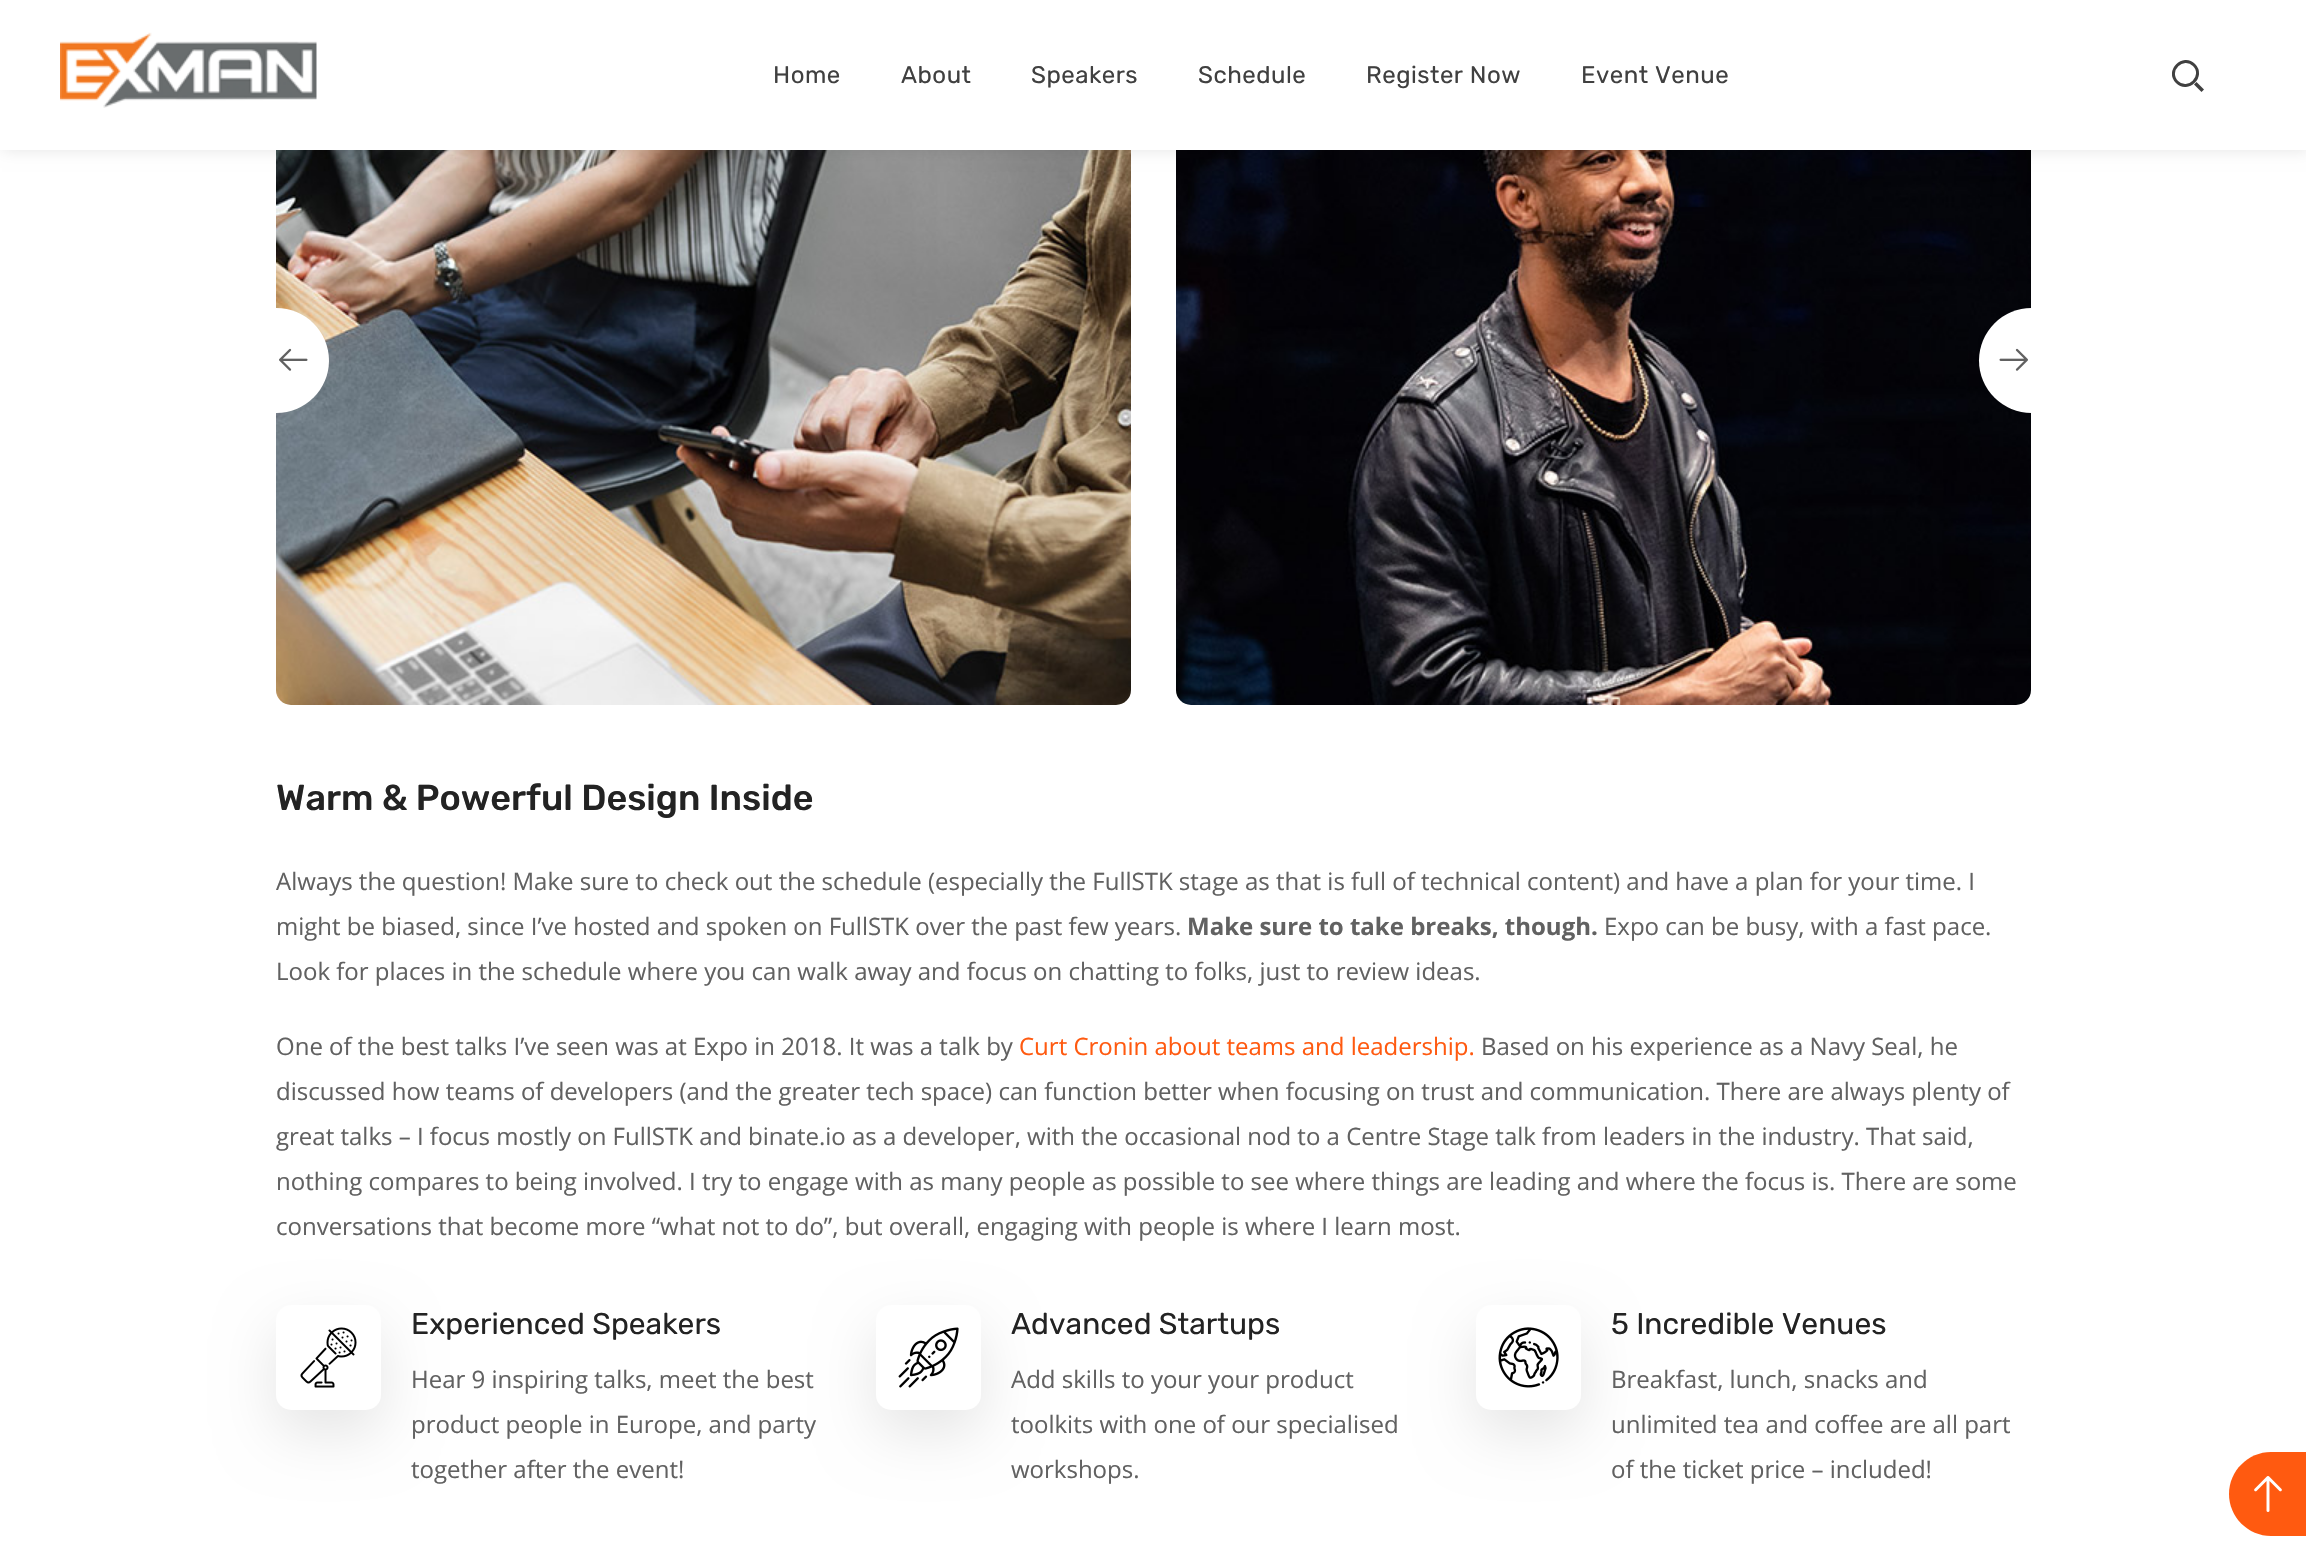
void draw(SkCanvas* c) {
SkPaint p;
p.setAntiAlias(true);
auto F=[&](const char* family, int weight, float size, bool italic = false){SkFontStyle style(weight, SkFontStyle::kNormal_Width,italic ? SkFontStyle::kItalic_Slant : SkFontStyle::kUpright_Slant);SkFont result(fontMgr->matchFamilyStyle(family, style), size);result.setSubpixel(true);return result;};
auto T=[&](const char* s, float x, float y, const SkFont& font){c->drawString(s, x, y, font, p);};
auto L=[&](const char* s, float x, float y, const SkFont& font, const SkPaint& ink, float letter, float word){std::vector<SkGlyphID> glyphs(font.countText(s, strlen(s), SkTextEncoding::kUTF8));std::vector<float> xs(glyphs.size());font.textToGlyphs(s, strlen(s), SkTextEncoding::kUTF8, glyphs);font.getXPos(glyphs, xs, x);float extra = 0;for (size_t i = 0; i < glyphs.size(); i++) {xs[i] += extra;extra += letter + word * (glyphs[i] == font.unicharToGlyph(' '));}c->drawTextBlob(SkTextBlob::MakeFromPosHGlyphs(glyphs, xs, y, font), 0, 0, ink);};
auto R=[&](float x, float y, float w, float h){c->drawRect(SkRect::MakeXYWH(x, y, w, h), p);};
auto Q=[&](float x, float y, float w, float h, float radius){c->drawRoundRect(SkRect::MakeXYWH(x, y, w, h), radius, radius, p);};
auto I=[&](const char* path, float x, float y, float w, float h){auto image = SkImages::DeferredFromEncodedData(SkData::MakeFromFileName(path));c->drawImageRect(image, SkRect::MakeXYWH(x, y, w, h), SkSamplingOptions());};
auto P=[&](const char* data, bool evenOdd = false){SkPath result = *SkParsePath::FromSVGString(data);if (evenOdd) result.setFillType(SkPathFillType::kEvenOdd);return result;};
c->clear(0xffffffff);
I("2.png",276,150,855,555);
I("3.png",1176,150,855,555);
p.setColor(0x1a000000);
p.setMaskFilter(SkMaskFilter::MakeBlur(kNormal_SkBlurStyle, 7.5));
c->drawRect(SkRect::MakeXYWH(2,0,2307,150),p);
p.setMaskFilter(nullptr);
p.setColor(0xffffffff);
R(0,0,2306,150);
I("1.png",60,32,257,76);
auto f1 = F("Rubik",400,24);
p.setColor(0xff404040);
L("Home",773,83,f1,p,.5,0);
L("About",901,83,f1,p,.5,0);
L("Speakers",1031,83,f1,p,.5,0);
L("Schedule",1198,83,f1,p,.5,0);
L("Register Now",1366,83,f1,p,.5,0);
L("Event Venue",1581,83,f1,p,.5,0);
p.setStroke(true);
p.setStrokeWidth(3);
c->drawPath(P("M2194 65c11 11-6 28-17 17c-11-11 6-28 17-17z"),p);
p.setStroke(false);
c->drawPath(P("M2194 84.5l2.5-2.5l7.5 7.5l-2.5 2.5z"),p);
c->save();
c->clipRect(SkRect::MakeXYWH(254,15,1800,690));
p.setColor(0xffffffff);
c->drawCircle(276.5,360.5,52.5,p);
c->restore();
I("4.png",279,348,29,23);
c->save();
c->clipRect(SkRect::MakeXYWH(254,15,1800,690));
c->drawCircle(2031.5,360.5,52.5,p);
c->restore();
I("5.png",1999,348,29,23);
auto f2 = F("Rubik",500,36);
p.setColor(0xff232323);
T("Warm & Powerful Design Inside",276,810,f2);
auto f3 = F("Open Sans",400,24);
p.setColor(0xff616161);
T("Always the question! Make sure to check out the schedule (especially the FullSTK stage as that is full of technical content) and have a plan for your time. I",276,890,f3);
T("might be biased, since I’ve hosted and spoken on FullSTK over the past few years.",276,935,f3);
auto f4 = F("Open Sans",700,24);
T("Make sure to take breaks, though.",1187,935,f4);
T("Expo can be busy, with a fast pace.",1604,935,f3);
T("Look for places in the schedule where you can walk away and focus on chatting to folks, just to review ideas.",276,980,f3);
T("One of the best talks I’ve seen was at Expo in 2018. It was a talk by",276,1055,f3);
p.setColor(0xffff5a10);
T("Curt Cronin about teams and leadership.",1019,1055,f3);
p.setColor(0xff616161);
T("Based on his experience as a Navy Seal, he",1481,1055,f3);
T("discussed how teams of developers (and the greater tech space) can function better when focusing on trust and communication. There are always plenty of",276,1100,f3);
T("great talks – I focus mostly on FullSTK and binate.io as a developer, with the occasional nod to a Centre Stage talk from leaders in the industry. That said,",276,1145,f3);
T("nothing compares to being involved. I try to engage with as many people as possible to see where things are leading and where the focus is. There are some",276,1190,f3);
T("conversations that become more “what not to do”, but overall, engaging with people is where I learn most.",276,1235,f3);
p.setColor(0x1a000000);
p.setMaskFilter(SkMaskFilter::MakeBlur(kNormal_SkBlurStyle, 28.5));
c->drawRoundRect(SkRect::MakeXYWH(276,1328,105,105),15,15,p);
p.setMaskFilter(nullptr);
p.setColor(0xffffffff);
Q(276,1305,105,105,15);
I("6.png",300,1327,57,61);
auto f5 = F("Rubik",400,30);
p.setColor(0xff232323);
T("Experienced Speakers",411,1334,f5);
p.setColor(0xff616161);
T("Hear 9 inspiring talks, meet the best",411,1388,f3);
T("product people in Europe, and party",411,1433,f3);
T("together after the event!",411,1478,f3);
p.setColor(0x1a000000);
p.setMaskFilter(SkMaskFilter::MakeBlur(kNormal_SkBlurStyle, 28.5));
c->drawRoundRect(SkRect::MakeXYWH(876,1328,105,105),15,15,p);
p.setMaskFilter(nullptr);
p.setColor(0xffffffff);
Q(876,1305,105,105,15);
I("7.png",898,1327,61,61);
p.setColor(0xff232323);
T("Advanced Startups",1011,1334,f5);
p.setColor(0xff616161);
T("Add skills to your your product",1011,1388,f3);
T("toolkits with one of our specialised",1011,1433,f3);
T("workshops.",1011,1478,f3);
p.setColor(0x1a000000);
p.setMaskFilter(SkMaskFilter::MakeBlur(kNormal_SkBlurStyle, 28.5));
c->drawRoundRect(SkRect::MakeXYWH(1476,1328,105,105),15,15,p);
p.setMaskFilter(nullptr);
p.setColor(0xffffffff);
Q(1476,1305,105,105,15);
I("8.png",1498,1327,61,61);
p.setColor(0xff232323);
T("5 Incredible Venues",1611,1334,f5);
p.setColor(0xff616161);
T("Breakfast, lunch, snacks and",1611,1388,f3);
T("unlimited tea and coffee are all part",1611,1433,f3);
T("of the ticket price – included!",1611,1478,f3);
p.setColor(0xffff5a10);
c->drawPath(P("M2271 1452h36v84h-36c-23 0-42-19-42-42c0-23 19-42 42-42z"),p);
I("9.png",2254,1476,28,36);
}
